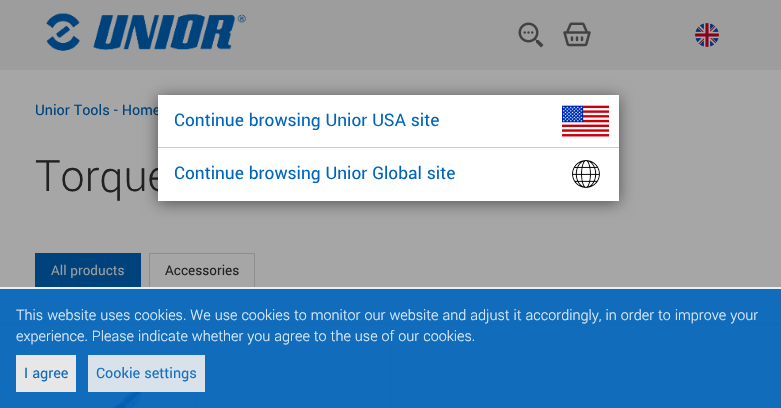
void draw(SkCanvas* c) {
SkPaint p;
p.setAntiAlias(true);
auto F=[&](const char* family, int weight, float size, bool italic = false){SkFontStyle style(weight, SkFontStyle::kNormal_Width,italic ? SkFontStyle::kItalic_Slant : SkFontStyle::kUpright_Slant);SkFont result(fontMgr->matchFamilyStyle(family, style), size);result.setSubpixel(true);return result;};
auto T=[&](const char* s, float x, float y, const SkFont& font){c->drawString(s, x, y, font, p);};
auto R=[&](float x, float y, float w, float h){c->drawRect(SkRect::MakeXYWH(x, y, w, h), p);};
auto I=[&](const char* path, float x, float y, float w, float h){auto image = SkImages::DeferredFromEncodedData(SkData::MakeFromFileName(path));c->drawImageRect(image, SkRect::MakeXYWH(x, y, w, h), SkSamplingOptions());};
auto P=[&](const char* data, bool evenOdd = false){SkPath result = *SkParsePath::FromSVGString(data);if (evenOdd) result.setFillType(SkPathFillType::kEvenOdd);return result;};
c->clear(0xffa6a6a6);
p.setColor(0xff9d9d9d);
R(0,0,781,70);
I("1.png",46,13,200,38);
I("2.png",518,22,26,26);
I("3.png",563,22,28,25);
I("4.png",695,23,24,24);
auto f1 = F("Yantramanav",400,16);
p.setColor(0xff00427b);
T("Unior Tools - Home",35,115,f1);
auto f2 = F("Yantramanav",300,48);
p.setColor(0xff212121);
T("Torque",35,191,f2);
p.setColor(0xff00427b);
R(35,253,106,36);
auto f3 = F("Yantramanav",400,15);
p.setColor(0xff9d9d9d);
T("All products",51,275,f3);
p.setStroke(true);
p.setStrokeWidth(1);
p.setColor(0xff8e8e8e);
c->drawRect(SkRect::MakeXYWH(149.5,253.5,105,35),p);
p.setStroke(false);
p.setColor(0xff212121);
T("Accessories",165,275,f3);
p.setColor(0xff999999);
c->drawPath(P("M-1 323v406h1v-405h194v-1z"),p);
c->drawPath(P("M1 323v1h194v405h1v-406z"),p);
I("5.png",112,390,30,18);
c->drawPath(P("M195 323v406h1v-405h193v-1z"),p);
c->drawPath(P("M197 323v1h193v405h1v-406z"),p);
c->drawPath(P("M390 323v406h1v-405h194v-1z"),p);
c->drawPath(P("M392 323v1h194v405h1v-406z"),p);
c->drawPath(P("M586 323v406h1v-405h193v-1z"),p);
c->drawPath(P("M588 323v1h193v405h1v-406z"),p);
p.setColor(0x80000000);
p.setMaskFilter(SkMaskFilter::MakeBlur(kNormal_SkBlurStyle, 7.5));
c->drawRect(SkRect::MakeXYWH(158,97,461,106),p);
p.setMaskFilter(nullptr);
p.setColor(0xffffffff);
R(158,95,461,106);
auto f4 = F("Yantramanav",400,19.25);
p.setColor(0xff0065bd);
T("Continue browsing Unior USA site",174,126,f4);
I("6.png",562,105,47,32);
p.setColor(0xffcccccc);
R(158,147,461,1);
p.setColor(0xff0065bd);
T("Continue browsing Unior Global site",174,179,f4);
I("7.png",572,160,28,28);
p.setColor(0xe60065bd);
R(0,287,781,121);
p.setColor(0xe6ffffff);
R(0,287,781,2);
auto f5 = F("Yantramanav",300,16);
p.setColor(0xffe7f0f8);
T("This website uses cookies. We use cookies to monitor our website and adjust it accordingly, in order to improve your",16,320,f5);
T("experience. Please indicate whether you agree to the use of our cookies.",16,341,f5);
p.setColor(0xffe7e7e7);
R(16,355,60,37);
p.setColor(0xff116bbb);
T("I agree",24,378,f1);
p.setColor(0xe6eeeeee);
R(88,355,117,37);
p.setColor(0xff1671c1);
T("Cookie settings",96,378,f1);
}
